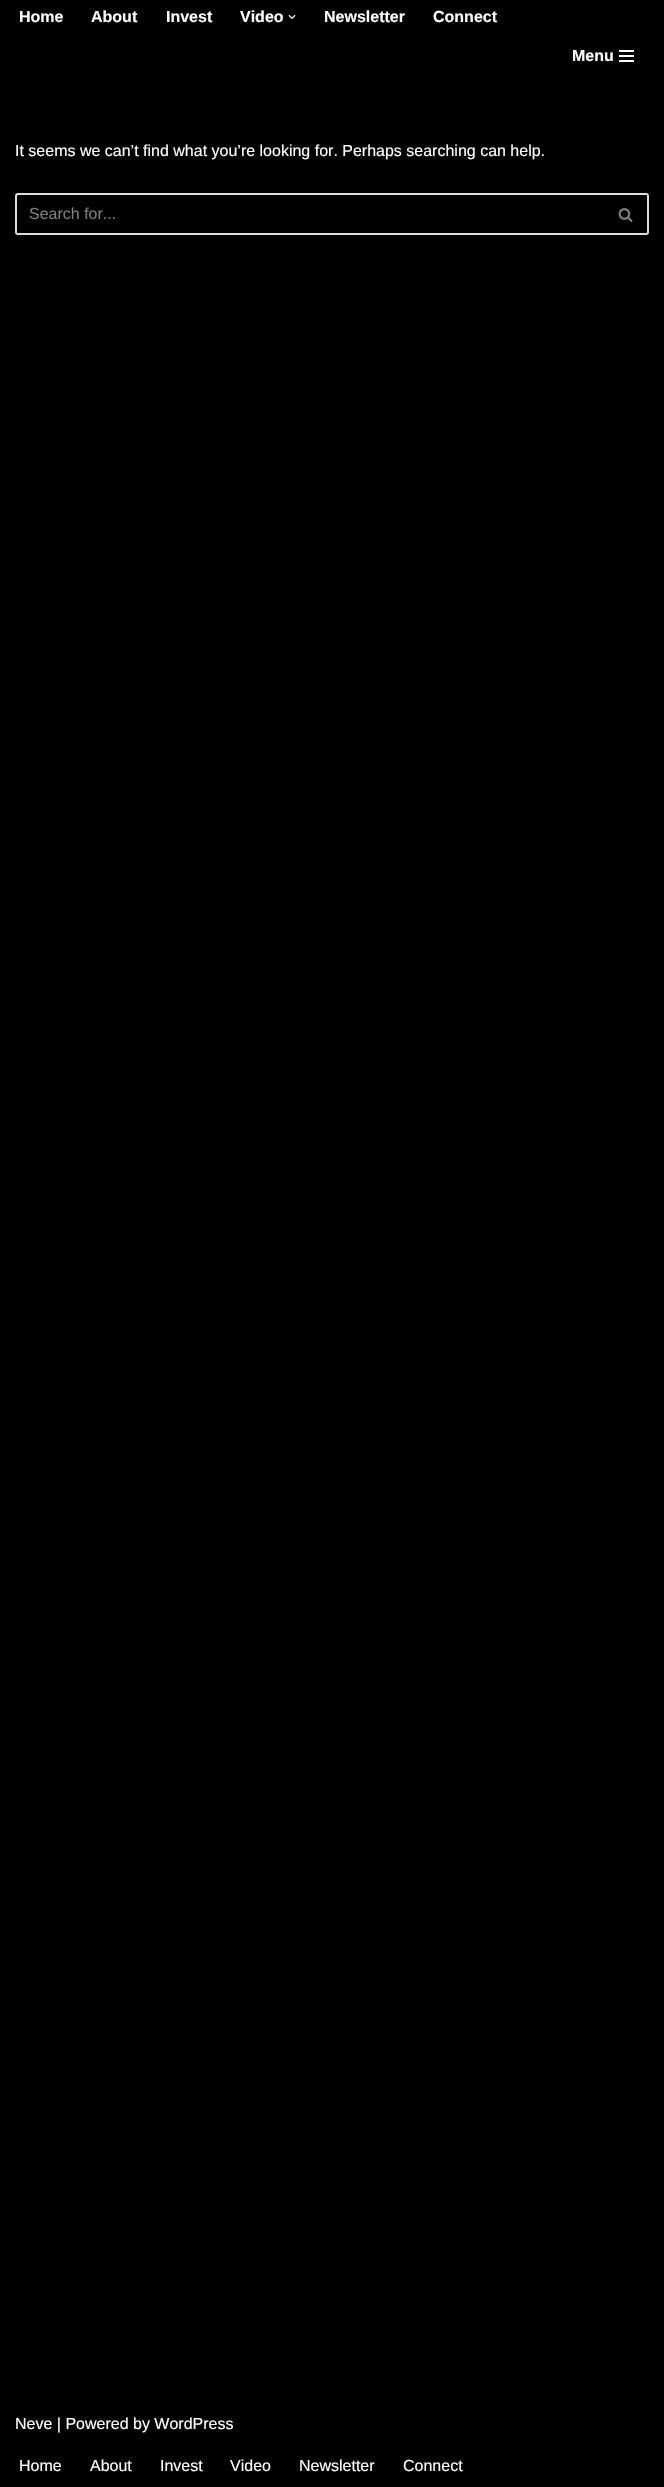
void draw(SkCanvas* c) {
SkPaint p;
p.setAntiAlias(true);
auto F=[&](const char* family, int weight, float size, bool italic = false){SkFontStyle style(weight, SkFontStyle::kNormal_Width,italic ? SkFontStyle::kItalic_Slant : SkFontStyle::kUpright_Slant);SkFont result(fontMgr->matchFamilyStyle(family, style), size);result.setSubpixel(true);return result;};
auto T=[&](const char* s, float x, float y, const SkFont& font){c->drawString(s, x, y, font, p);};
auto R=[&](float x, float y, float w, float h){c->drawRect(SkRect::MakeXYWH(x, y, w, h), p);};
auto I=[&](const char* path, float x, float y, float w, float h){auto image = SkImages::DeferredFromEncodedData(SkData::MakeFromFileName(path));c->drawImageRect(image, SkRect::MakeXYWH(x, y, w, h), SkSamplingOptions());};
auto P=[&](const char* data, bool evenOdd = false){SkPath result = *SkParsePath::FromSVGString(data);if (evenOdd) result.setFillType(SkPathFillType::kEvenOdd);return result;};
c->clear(0xff000000);
auto f1 = F("Liberation Sans",700,16);
p.setColor(0xffffffff);
T("Home",19,22,f1);
T("About",91,22,f1);
T("Invest",166,22,f1);
T("Video",240,22,f1);
I("1.png",288,15,8,4);
T("Newsletter",324,22,f1);
T("Connect",433,22,f1);
T("Menu",572,61,f1);
R(619,50,15,2);
R(619,55,15,2);
R(619,60,15,2);
auto f2 = F("Liberation Sans",400,16);
T("It seems we can’t find what you’re looking for. Perhaps searching can help.",15,156,f2);
p.setColor(0xffdddddd);
c->drawPath(P("M18 193h586v42h-586c-2 0-3-1-3-3v-36c0-2 1-3 3-3zm0 2h586v38h-586h-1v-37z",true),p);
p.setColor(0xff808080);
T("Search for...",29,219,f2);
p.setColor(0xffdddddd);
c->drawPath(P("M604 193h42c2 0 3 1 3 3v36c0 2-1 3-3 3h-42zm0 2h42c1 0 1 0 1 1v36c0 1 0 1-1 1h-42z",true),p);
I("2.png",618,208,15,14);
p.setColor(0xffffffff);
T("Neve | Powered by WordPress",15,2429,f2);
T("Home",19,2471,f2);
T("About",90,2471,f2);
T("Invest",160,2471,f2);
T("Video",230,2471,f2);
T("Newsletter",299,2471,f2);
T("Connect",403,2471,f2);
}
